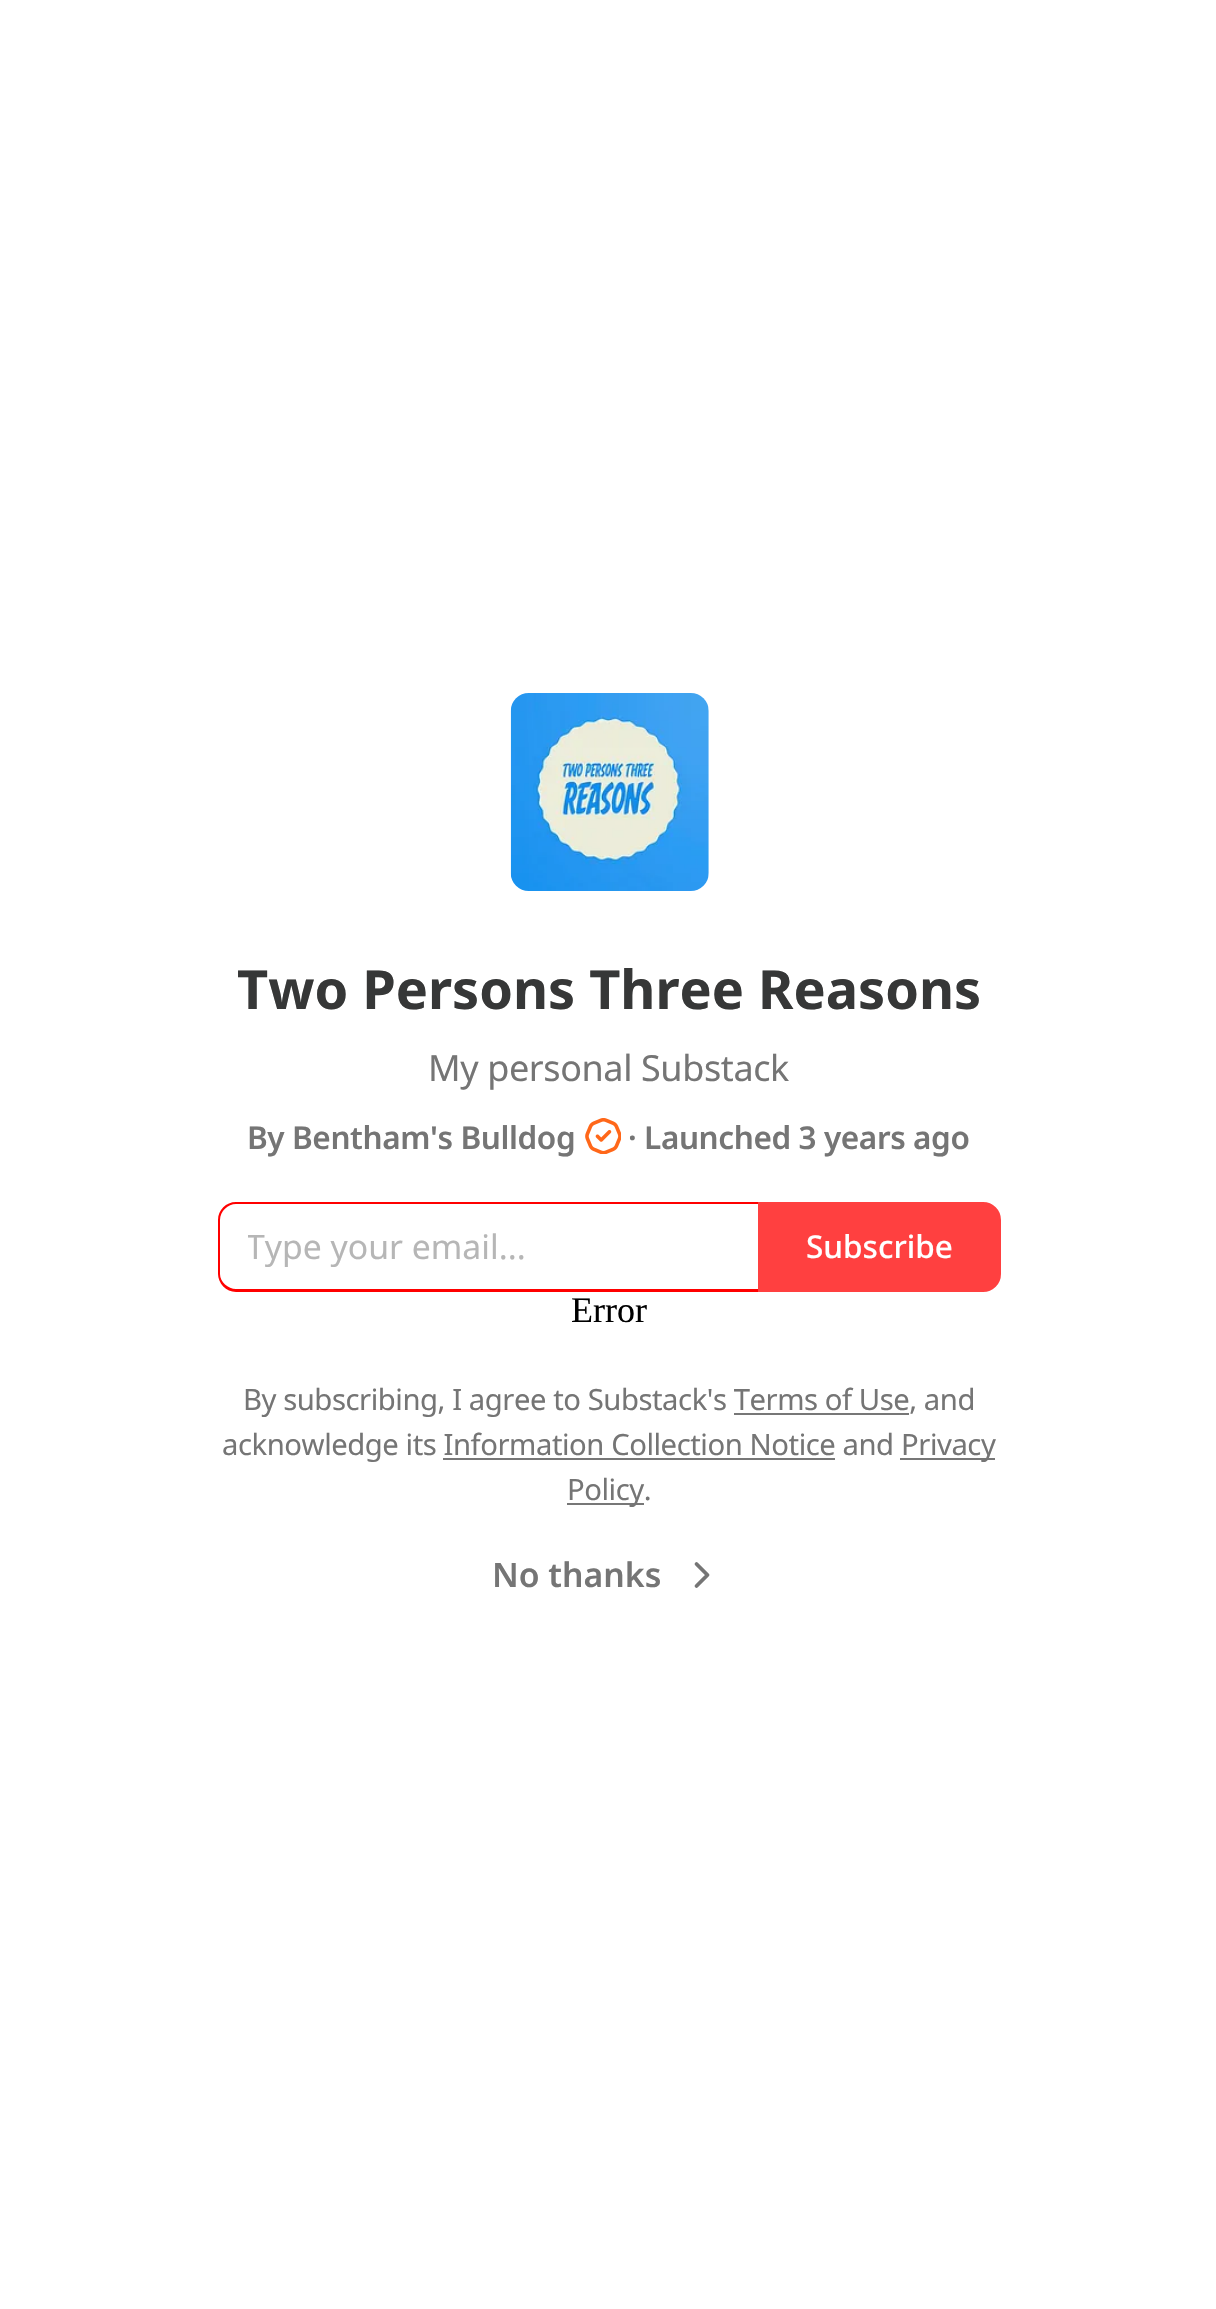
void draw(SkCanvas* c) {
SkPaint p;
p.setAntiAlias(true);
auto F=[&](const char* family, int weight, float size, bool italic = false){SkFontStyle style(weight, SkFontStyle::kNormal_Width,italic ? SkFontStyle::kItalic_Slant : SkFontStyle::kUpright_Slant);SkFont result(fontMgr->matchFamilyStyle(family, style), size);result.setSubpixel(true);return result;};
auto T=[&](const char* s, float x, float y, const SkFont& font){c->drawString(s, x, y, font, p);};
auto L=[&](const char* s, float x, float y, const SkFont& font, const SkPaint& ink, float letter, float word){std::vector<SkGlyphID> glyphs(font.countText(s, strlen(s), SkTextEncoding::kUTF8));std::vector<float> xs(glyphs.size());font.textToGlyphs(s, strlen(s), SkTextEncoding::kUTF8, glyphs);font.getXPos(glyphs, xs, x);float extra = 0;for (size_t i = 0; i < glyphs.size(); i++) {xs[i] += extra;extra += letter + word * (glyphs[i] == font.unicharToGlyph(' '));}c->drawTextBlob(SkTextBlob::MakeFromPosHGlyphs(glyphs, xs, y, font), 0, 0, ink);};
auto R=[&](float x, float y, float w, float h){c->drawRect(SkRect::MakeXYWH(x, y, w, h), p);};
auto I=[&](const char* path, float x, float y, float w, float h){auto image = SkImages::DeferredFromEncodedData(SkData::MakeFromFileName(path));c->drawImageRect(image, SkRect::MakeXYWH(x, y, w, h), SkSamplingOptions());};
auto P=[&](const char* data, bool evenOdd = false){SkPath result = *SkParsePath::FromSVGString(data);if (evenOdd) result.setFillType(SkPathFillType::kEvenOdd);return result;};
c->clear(0xffffffff);
I("1.png",510,693,199,198);
auto f1 = F("Noto Sans",700,54);
p.setColor(0xff363737);
T("Two Persons Three Reasons",237,1009,f1);
auto f2 = F("Noto Sans",400,36);
p.setColor(0xff757575);
L("My personal Substack",428,1081,f2,p,-.4,0);
auto f3 = F("Noto Sans",600,31.5);
L("By Bentham's Bulldog",247,1149,f3,p,-.4,0);
I("2.png",585,1118,36,36);
L("· Launched 3 years ago",628,1149,f3,p,-.4,0);
p.setColor(0xffff0000);
c->drawPath(P("M236 1202h522v90h-522c-10 0-18-9-18-18v-54c0-10 8-18 18-18zm0 2h522v85h-522c-8 0-16-7-16-15v-54c0-9 8-16 16-16z",true),p);
c->save();
c->clipRect(SkRect::MakeXYWH(248,1224,483,45));
auto f4 = F("Noto Sans",400,33.75);
p.setColor(0xffb6b6b6);
T("Type your email...",246,1259,f4);
c->restore();
p.setColor(0xffff4040);
c->drawPath(P("M759 1203h224c9.5 0 17 7.5 17 17v54c0 9.5-7.5 17-17 17h-224z"),p);
p.setStroke(true);
p.setStrokeWidth(2);
c->drawPath(P("M759 1203h224c9.5 0 17 7.5 17 17v54c0 9.5-7.5 17-17 17h-224z"),p);
auto f5 = F("Noto Sans",500,31.5);
p.setStroke(false);
p.setColor(0xffffffff);
T("Subscribe",806,1258,f5);
auto f6 = F("Liberation Serif",400,36);
p.setColor(0xff000000);
T("Error",571,1322,f6);
auto f7 = F("Noto Sans",400,29.25);
p.setColor(0xff757575);
L("By subscribing, I agree to Substack's Terms of Use, and",243,1410,f7,p,-.45,0);
p.setColor(0xff777777);
R(734,1413,175,2);
p.setColor(0xff757575);
L("acknowledge its Information Collection Notice and",222,1455,f7,p,-.45,0);
p.setColor(0xff777777);
R(900,1458,95,2);
p.setColor(0xff757575);
L("Privacy",901,1455,f7,p,-.45,0);
p.setColor(0xff777777);
R(443,1458,392,2);
R(567,1503,77,2);
p.setColor(0xff757575);
L("Policy.",567,1500,f7,p,-.45,0);
auto f8 = F("Noto Sans",600,33.75);
T("No thanks",492,1587,f8);
p.setStroke(true);
p.setStrokeWidth(3.8);
p.setStrokeCap(SkPaint::kRound_Cap);
p.setStrokeJoin(SkPaint::kRound_Join);
c->drawPath(P("M696.5 1586l11-11l-11-11"),p);
}
